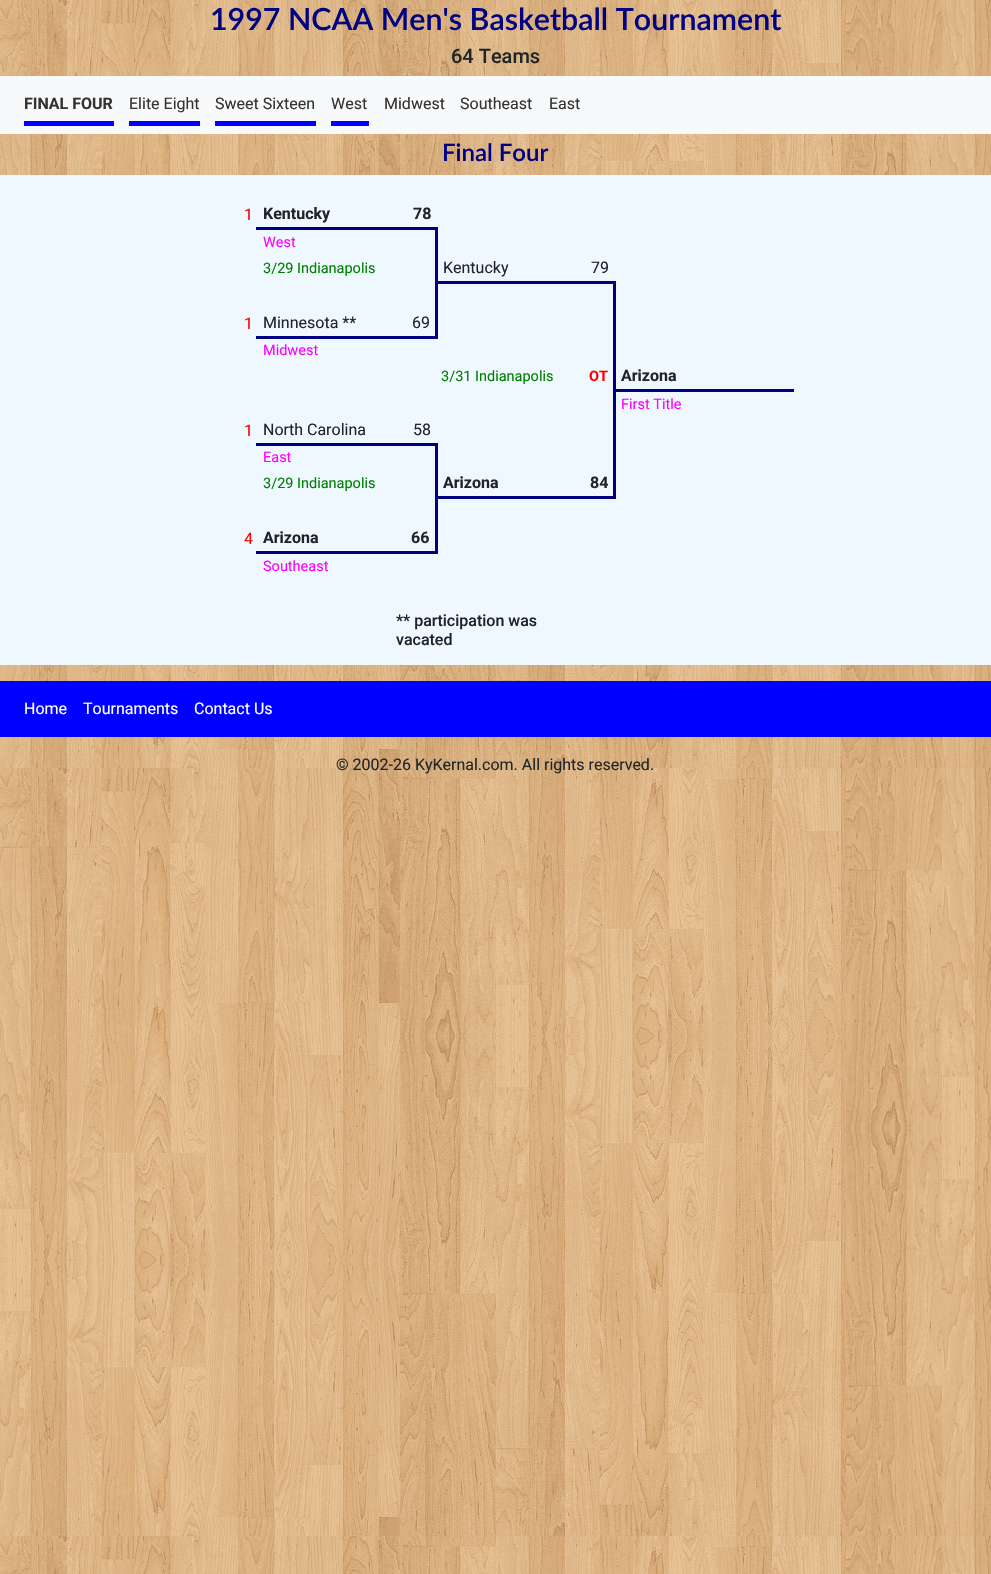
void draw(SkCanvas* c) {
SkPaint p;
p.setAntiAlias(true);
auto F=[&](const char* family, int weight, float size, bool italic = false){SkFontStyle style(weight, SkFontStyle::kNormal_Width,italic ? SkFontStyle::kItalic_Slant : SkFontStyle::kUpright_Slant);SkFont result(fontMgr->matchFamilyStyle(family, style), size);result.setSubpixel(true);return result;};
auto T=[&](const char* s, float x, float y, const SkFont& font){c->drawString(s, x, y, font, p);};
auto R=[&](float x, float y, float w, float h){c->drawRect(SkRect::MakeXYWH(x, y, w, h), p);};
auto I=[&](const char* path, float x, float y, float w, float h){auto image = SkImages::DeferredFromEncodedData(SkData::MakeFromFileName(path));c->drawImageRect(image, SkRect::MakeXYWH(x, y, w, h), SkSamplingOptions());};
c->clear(0xffffffff);
I("1.png",0,0,991,1574);
auto f1 = F("Lato",600,30.4);
p.setColor(0xff000080);
T("1997 NCAA Men's Basketball Tournament",210,30,f1);
auto f2 = F("Roboto",500,20);
p.setColor(0xff212529);
T("64 Teams",451,63,f2);
p.setColor(0xfff8f9fa);
R(0,76,991,58);
p.setColor(0xff0000ff);
R(24,121,90,5);
auto f3 = F("Roboto",700,16);
p.setColor(0xff333333);
T("FINAL FOUR",24,109,f3);
p.setColor(0xff0000ff);
R(129,121,71,5);
auto f4 = F("Roboto",400,16);
p.setColor(0xff333333);
T("Elite Eight",129,109,f4);
p.setColor(0xff0000ff);
R(215,121,101,5);
p.setColor(0xff333333);
T("Sweet Sixteen",215,109,f4);
p.setColor(0xff0000ff);
R(331,121,38,5);
p.setColor(0xff333333);
T("West",331,109,f4);
T("Midwest",384,109,f4);
T("Southeast",460,109,f4);
T("East",549,109,f4);
auto f5 = F("Lato",600,24);
p.setColor(0xff000080);
T("Final Four",442,161,f5);
p.setColor(0xfff0f8ff);
R(0,175,991,490);
p.setColor(0xffff0000);
T("1",244,220,f4);
p.setColor(0xff212529);
T("Kentucky",263,219,f3);
p.setColor(0xff000080);
R(435,281,3,58);
R(613,389,3,110);
R(613,389,181,3);
R(613,281,3,111);
R(435,281,181,3);
R(435,227,3,57);
R(256,227,182,3);
p.setColor(0xff212529);
T("78",413,219,f3);
auto f6 = F("Roboto",400,14.5);
p.setColor(0xffff00ff);
T("West",263,247,f6);
p.setColor(0xff008000);
T("3/29 Indianapolis",263,273,f6);
p.setColor(0xff212529);
T("Kentucky",443,273,f4);
T("79",591,273,f4);
p.setColor(0xffff0000);
T("1",244,329,f4);
p.setColor(0xff212529);
T("Minnesota **",263,328,f4);
p.setColor(0xff000080);
R(256,336,182,3);
p.setColor(0xff212529);
T("69",412,328,f4);
p.setColor(0xffff00ff);
T("Midwest",263,355,f6);
p.setColor(0xff008000);
T("3/31 Indianapolis",441,381,f6);
auto f7 = F("Roboto",700,14.5);
p.setColor(0xffff0000);
T("OT",589,381,f7);
p.setColor(0xff212529);
T("Arizona",621,381,f3);
p.setColor(0xffff00ff);
T("First Title",621,409,f6);
p.setColor(0xffff0000);
T("1",244,436,f4);
p.setColor(0xff212529);
T("North Carolina",263,435,f4);
p.setColor(0xff000080);
R(435,496,3,58);
R(435,496,181,3);
R(435,443,3,56);
R(256,443,182,3);
p.setColor(0xff212529);
T("58",413,435,f4);
p.setColor(0xffff00ff);
T("East",263,462,f6);
p.setColor(0xff008000);
T("3/29 Indianapolis",263,488,f6);
p.setColor(0xff212529);
T("Arizona",443,488,f3);
T("84",590,488,f3);
p.setColor(0xffff0000);
T("4",244,544,f4);
p.setColor(0xff212529);
T("Arizona",263,543,f3);
p.setColor(0xff000080);
R(256,551,182,3);
p.setColor(0xff212529);
T("66",411,543,f3);
p.setColor(0xffff00ff);
T("Southeast",263,571,f6);
auto f8 = F("Roboto",500,16);
p.setColor(0xff212529);
T("** participation was",396,626,f8);
T("vacated",396,645,f8);
p.setColor(0xff0000ff);
R(0,681,991,56);
p.setColor(0xffffffff);
T("Home",24,714,f4);
T("Tournaments",83,714,f4);
T("Contact Us",194,714,f4);
p.setColor(0xff212529);
T("© 2002-26 KyKernal.com. All rights reserved.",336,770,f4);
}
